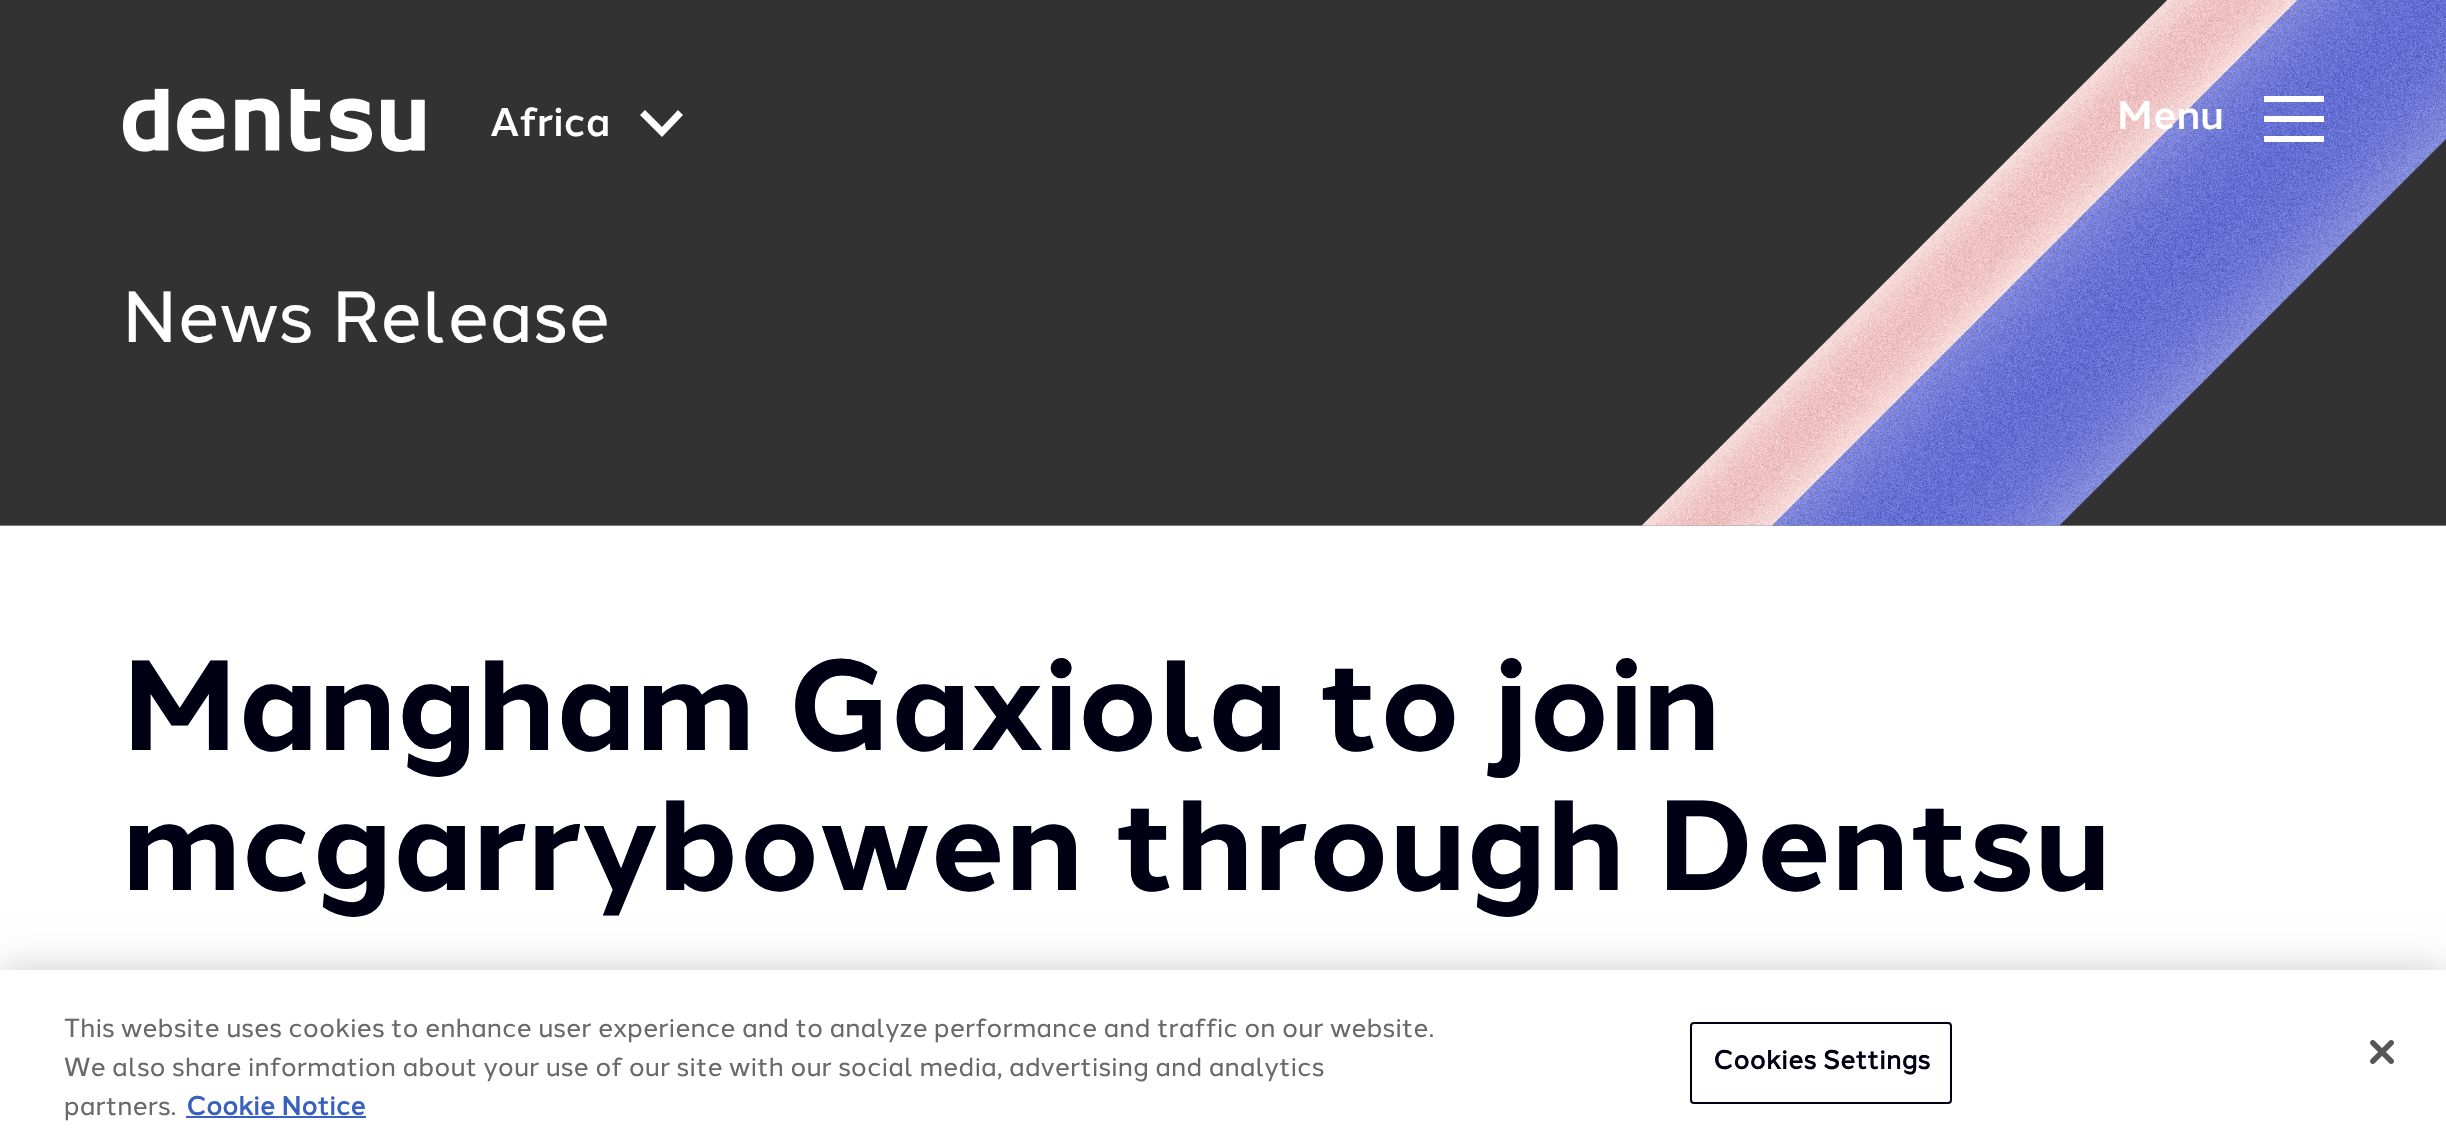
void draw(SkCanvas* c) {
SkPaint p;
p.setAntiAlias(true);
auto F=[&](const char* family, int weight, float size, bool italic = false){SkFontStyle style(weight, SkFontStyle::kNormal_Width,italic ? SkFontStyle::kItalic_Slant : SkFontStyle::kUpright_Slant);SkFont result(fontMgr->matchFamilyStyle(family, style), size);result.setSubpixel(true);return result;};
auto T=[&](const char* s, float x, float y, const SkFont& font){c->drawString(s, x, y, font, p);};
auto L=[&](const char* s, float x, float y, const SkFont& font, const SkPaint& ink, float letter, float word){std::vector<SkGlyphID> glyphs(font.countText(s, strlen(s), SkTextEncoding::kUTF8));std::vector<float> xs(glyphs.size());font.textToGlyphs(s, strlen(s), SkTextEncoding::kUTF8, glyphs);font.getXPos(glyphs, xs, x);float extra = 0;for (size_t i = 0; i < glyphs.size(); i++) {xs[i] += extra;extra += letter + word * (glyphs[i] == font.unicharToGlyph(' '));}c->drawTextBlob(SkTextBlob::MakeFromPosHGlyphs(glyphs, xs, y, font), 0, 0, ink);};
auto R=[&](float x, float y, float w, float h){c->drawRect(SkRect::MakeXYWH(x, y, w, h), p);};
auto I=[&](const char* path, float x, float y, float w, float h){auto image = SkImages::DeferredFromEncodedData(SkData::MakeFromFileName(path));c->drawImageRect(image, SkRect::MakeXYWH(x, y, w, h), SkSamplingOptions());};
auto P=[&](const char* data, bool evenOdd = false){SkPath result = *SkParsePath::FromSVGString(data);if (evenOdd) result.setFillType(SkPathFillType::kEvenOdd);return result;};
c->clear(0xffffffff);
I("2.png",0,0,2446,526);
I("1.png",123,88,302,64);
auto f1 = F("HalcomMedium",500,40);
p.setColor(0xffffffff);
T("Africa",490,136,f1);
c->drawPath(P("M662 127l16-17l5 5l-21 22l-22-22l5-5z"),p);
T("Menu",2117,129,f1);
R(2264,96,60,6);
R(2264,116,60,6);
R(2264,136,60,6);
auto f2 = F("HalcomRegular",400,72);
T("News Release",122,342,f2);
auto f3 = F("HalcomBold",700,128);
p.setColor(0xff000014);
T("Mangham Gaxiola to join",122,750,f3);
T("mcgarrybowen through Dentsu",122,890,f3);
p.setColor(0x33000000);
p.setMaskFilter(SkMaskFilter::MakeBlur(kNormal_SkBlurStyle, 18));
c->drawRect(SkRect::MakeXYWH(0,970,2446,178),p);
p.setMaskFilter(nullptr);
p.setColor(0xffffffff);
R(0,970,2446,177);
auto f4 = F("HalcomRegular",400,26.02);
p.setColor(0xff696969);
T("This website uses cookies to enhance user experience and to analyze performance and traffic on our website.",64,1037,f4);
T("We also share information about your use of our site with our social media, advertising and analytics",64,1076,f4);
T("partners.",64,1115,f4);
auto f5 = F("HalcomRegular",700,26.02);
p.setColor(0xff3860be);
T("Cookie Notice",186,1115,f5);
R(186,1116,180,2);
p.setStroke(true);
p.setStrokeWidth(2);
p.setColor(0xff000014);
c->drawRoundRect(SkRect::MakeXYWH(1691,1023,260,80),3,3,p);
p.setStroke(false);
L("Cookies Settings",1713,1069,f5,p,.25,0);
I("3.png",2370,1040,24,24);
}
